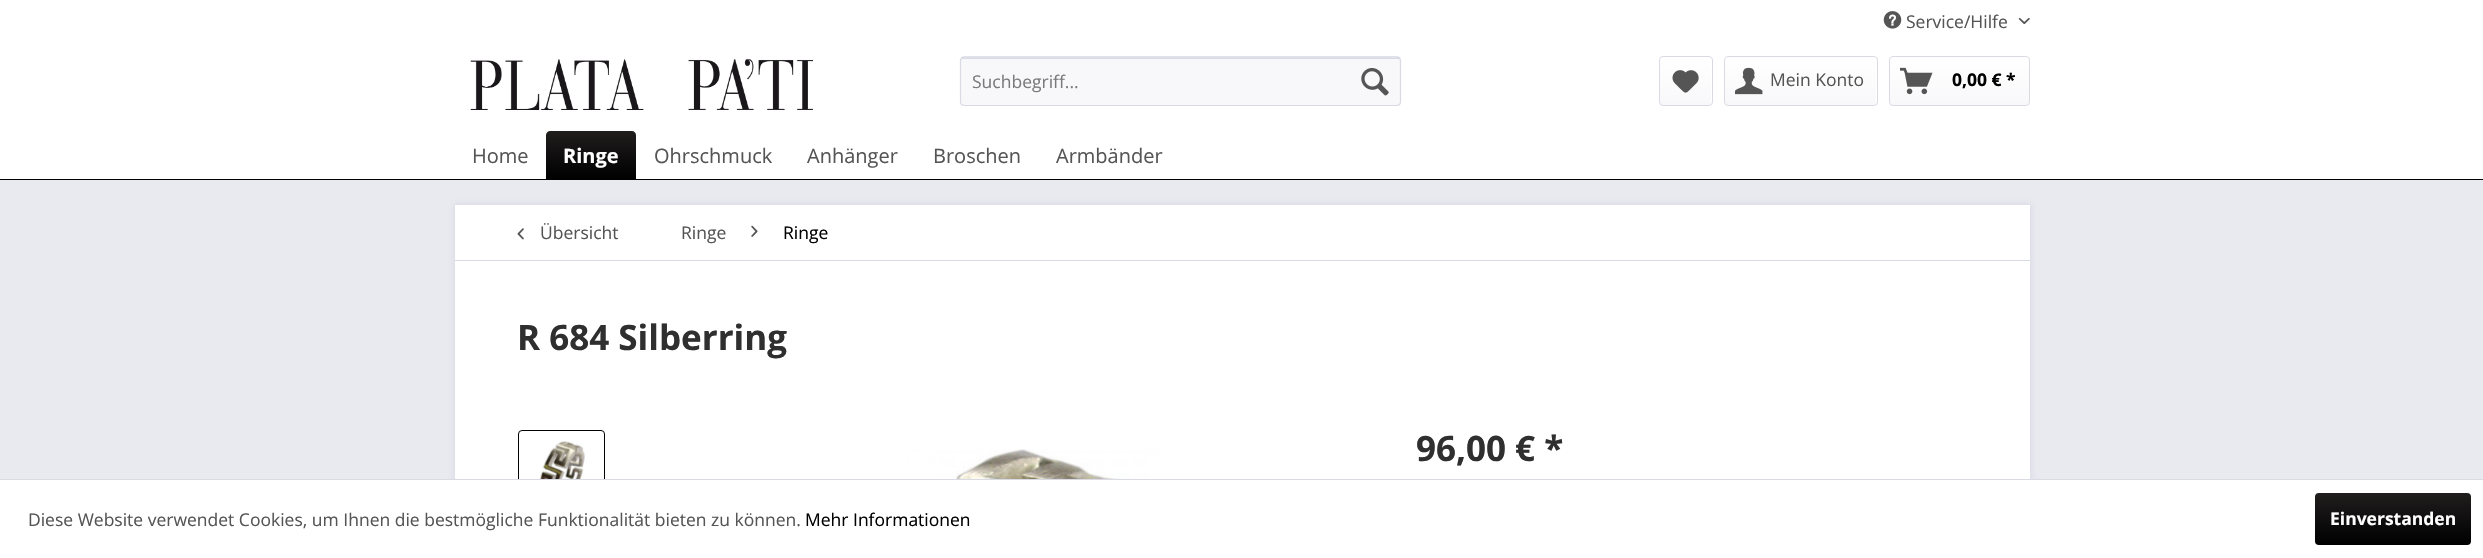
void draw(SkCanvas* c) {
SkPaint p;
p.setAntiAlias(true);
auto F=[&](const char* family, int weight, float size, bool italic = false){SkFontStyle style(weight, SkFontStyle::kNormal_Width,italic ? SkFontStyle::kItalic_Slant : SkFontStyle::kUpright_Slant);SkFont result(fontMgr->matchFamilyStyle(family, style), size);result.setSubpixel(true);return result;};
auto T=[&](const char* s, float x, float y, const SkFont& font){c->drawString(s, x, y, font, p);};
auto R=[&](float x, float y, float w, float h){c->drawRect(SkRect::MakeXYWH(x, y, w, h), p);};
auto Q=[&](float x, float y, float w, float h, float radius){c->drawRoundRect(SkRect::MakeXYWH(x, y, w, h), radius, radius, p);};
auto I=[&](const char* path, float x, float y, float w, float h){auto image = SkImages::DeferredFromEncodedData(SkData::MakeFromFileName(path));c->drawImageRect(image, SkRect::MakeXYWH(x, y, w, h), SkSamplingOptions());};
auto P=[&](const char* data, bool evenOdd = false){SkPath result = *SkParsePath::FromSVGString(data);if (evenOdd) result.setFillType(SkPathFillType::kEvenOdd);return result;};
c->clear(0xffe9e9f0);
p.setColor(0xffffffff);
R(0,0,2483,179);
I("1.png",1883,11,19,18);
auto f1 = F("Open Sans",400,17.5);
p.setColor(0xff555555);
T("Service/Hilfe",1906,28,f1);
I("2.png",2018,17,12,8);
I("3.png",470,59,343,51);
p.setColor(0xfff8f8fa);
Q(960,56,441,50,4);
p.setColor(0xffdadae5);
c->drawPath(P("M964 59h434c1 0 2 1 2 2c0-2-1-3-2-3h-434l-2 1l-1 2c0-1 1-2 3-2z"),p);
p.setStroke(true);
p.setStrokeWidth(1.2);
p.setColor(0xffcbcbdb);
c->drawPath(P("M961.5 58l2.5-1h433.5l2 1"),p);
p.setColor(0xffdadae5);
c->drawPath(P("M1399.5 58l1 2v42.5l-1 2l-2 1h-433.5l-2.5-1l-1-2v-42.5l1-2"),p);
p.setStroke(false);
p.setColor(0xff7b7b7b);
T("Suchbegriff...",972,88,f1);
I("4.png",1361,68,28,28);
{
const SkColor colors[] = {0xffffffff,0xfff8f8fa};
const float stops[] = {0,1};
const SkPoint ends[] = {{1686,58}, {1686,105}};
p.setShader(SkGradientShader::MakeLinear(ends, colors, stops, 2, SkTileMode::kClamp));
p.setAlpha(255);
}
Q(1660,58,51,47,2.5);
p.setStroke(true);
p.setStrokeWidth(1);
p.setShader(nullptr);
p.setColor(0xffdadae5);
c->drawRoundRect(SkRect::MakeXYWH(1659.5,56.5,53,49),3.5,3.5,p);
I("5.png",1672,70,27,23);
p.setStroke(false);
{
const SkColor colors[] = {0xffffffff,0xfff8f8fa};
const float stops[] = {0,1};
const SkPoint ends[] = {{1801,57}, {1801,105}};
p.setShader(SkGradientShader::MakeLinear(ends, colors, stops, 2, SkTileMode::kClamp));
p.setAlpha(255);
}
Q(1725,58,151,47,2.5);
p.setStroke(true);
p.setShader(nullptr);
p.setColor(0xffdadae5);
c->drawRoundRect(SkRect::MakeXYWH(1724.5,56.5,153,49),3.5,3.5,p);
I("6.png",1735,67,28,28);
p.setStroke(false);
p.setColor(0xff555555);
T("Mein Konto",1770,86,f1);
{
const SkColor colors[] = {0xffffffff,0xfff8f8fa};
const float stops[] = {0,1};
const SkPoint ends[] = {{1959,57}, {1959,105}};
p.setShader(SkGradientShader::MakeLinear(ends, colors, stops, 2, SkTileMode::kClamp));
p.setAlpha(255);
}
Q(1890,58,139,47,2.5);
p.setStroke(true);
p.setShader(nullptr);
p.setColor(0xffdadae5);
c->drawRoundRect(SkRect::MakeXYWH(1889.5,56.5,140,49),3.5,3.5,p);
I("7.png",1900,67,33,28);
auto f2 = F("Open Sans",700,17.5);
p.setStroke(false);
p.setColor(0xff000000);
T("0,00 € *",1952,86,f2);
R(0,179,2483,1);
auto f3 = F("Open Sans",400,20);
p.setColor(0xff555555);
T("Home",472,163,f3);
{
const SkColor colors[] = {0xff201d1d,0xff000000};
const float stops[] = {0,1};
const SkPoint ends[] = {{591,131}, {591,179}};
p.setShader(SkGradientShader::MakeLinear(ends, colors, stops, 2, SkTileMode::kClamp));
p.setAlpha(255);
}
c->drawPath(P("M550 131h82c2 0 4 2 4 4v44h-90v-44c0-2 2-4 4-4z"),p);
auto f4 = F("Open Sans",700,20);
p.setShader(nullptr);
p.setColor(0xffffffff);
T("Ringe",563,163,f4);
p.setColor(0xff555555);
T("Ohrschmuck",654,163,f3);
T("Anhänger",807,163,f3);
T("Broschen",933,163,f3);
T("Armbänder",1056,163,f3);
p.setColor(0xffdadae5);
p.setMaskFilter(SkMaskFilter::MakeBlur(kNormal_SkBlurStyle, 2.5));
c->drawRect(SkRect::MakeXYWH(454,204,1577,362),p);
p.setMaskFilter(nullptr);
p.setColor(0xffffffff);
R(455,205,1575,274);
p.setColor(0xffdadae5);
R(455,260,1575,1);
I("8.png",517,228,7,12);
p.setColor(0xff555555);
T("Übersicht",540,239,f1);
T("Ringe",681,239,f1);
I("9.png",751,225,7,12);
p.setColor(0xff000000);
T("Ringe",783,239,f1);
auto f5 = F("Open Sans",700,35);
p.setColor(0xff2f2f2f);
T("R 684 Silberring",517,350,f5);
p.setStroke(true);
p.setColor(0xff000000);
c->drawRoundRect(SkRect::MakeXYWH(518.5,430.5,86,87),3.5,3.5,p);
I("10.png",539,441,46,38);
I("11.png",900,449,267,30);
p.setStroke(false);
p.setColor(0xff2f2f2f);
T("96,00 € *",1416,461,f5);
p.setColor(0xffffffff);
R(0,480,2483,78);
p.setColor(0xffdadae5);
R(0,479,2483,1);
p.setColor(0xff555555);
T("Diese Website verwendet Cookies, um Ihnen die bestmögliche Funktionalität bieten zu können.",28,526,f1);
p.setColor(0xff000000);
T("Mehr Informationen",805,526,f1);
{
const SkColor colors[] = {0xff201d1d,0xff000000};
const float stops[] = {0,1};
const SkPoint ends[] = {{2393,493}, {2393,545}};
p.setShader(SkGradientShader::MakeLinear(ends, colors, stops, 2, SkTileMode::kClamp));
p.setAlpha(255);
}
Q(2315,493,156,52,4);
p.setShader(nullptr);
p.setColor(0xffffffff);
T("Einverstanden",2330,525,f2);
}
